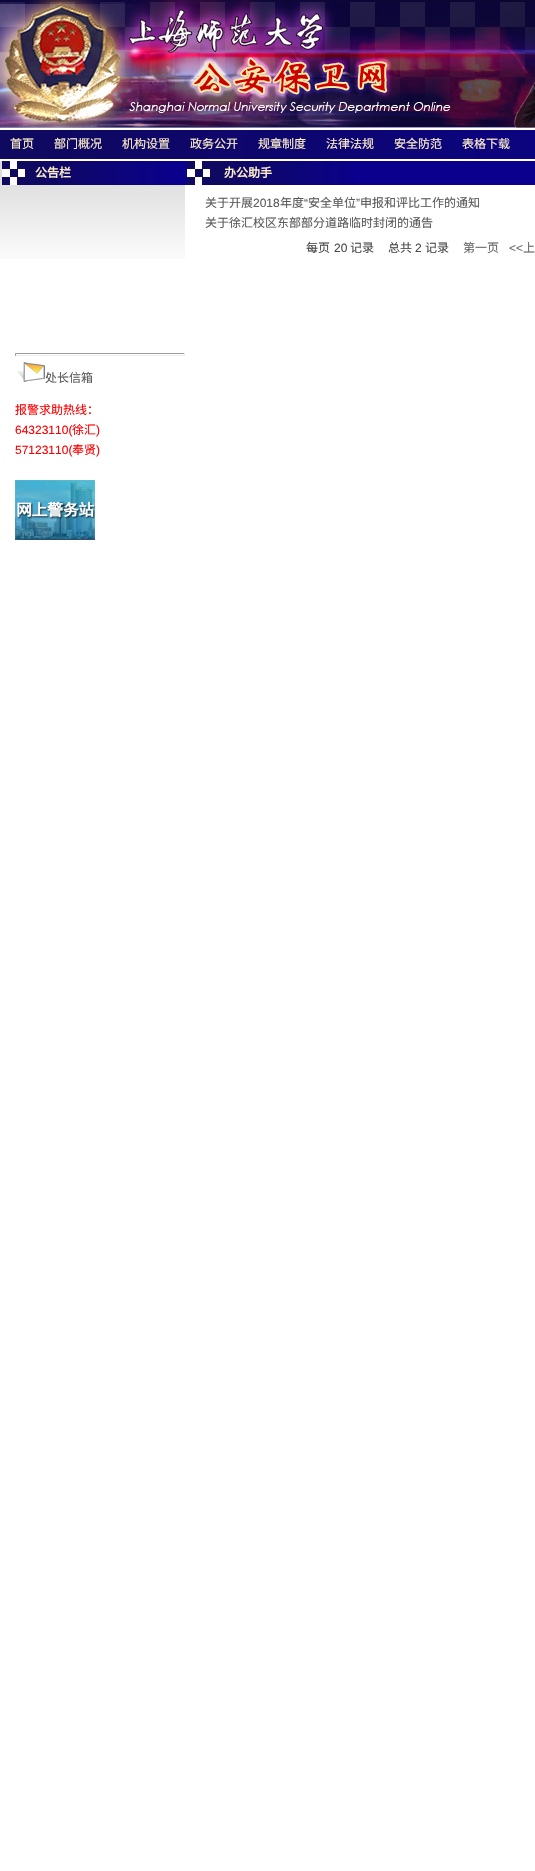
void draw(SkCanvas* c) {
SkPaint p;
p.setAntiAlias(true);
auto F=[&](const char* family, int weight, float size, bool italic = false){SkFontStyle style(weight, SkFontStyle::kNormal_Width,italic ? SkFontStyle::kItalic_Slant : SkFontStyle::kUpright_Slant);SkFont result(fontMgr->matchFamilyStyle(family, style), size);result.setSubpixel(true);return result;};
auto T=[&](const char* s, float x, float y, const SkFont& font){c->drawString(s, x, y, font, p);};
auto R=[&](float x, float y, float w, float h){c->drawRect(SkRect::MakeXYWH(x, y, w, h), p);};
auto I=[&](const char* path, float x, float y, float w, float h){auto image = SkImages::DeferredFromEncodedData(SkData::MakeFromFileName(path));c->drawImageRect(image, SkRect::MakeXYWH(x, y, w, h), SkSamplingOptions());};
c->clear(0xffffffff);
I("1.png",0,0,535,128);
I("2.png",0,130,535,29);
auto f1 = F("Noto Sans CJK SC",400,12);
p.setColor(0xfffff0cb);
T("首页",10,148,f1);
T("部门概况",54,148,f1);
T("机构设置",122,148,f1);
T("政务公开",190,148,f1);
T("规章制度",258,148,f1);
T("法律法规",326,148,f1);
T("安全防范",394,148,f1);
T("表格下载",462,148,f1);
I("3.png",0,161,185,98);
p.setColor(0xff0a008d);
R(169,161,18,24);
I("4.png",2,161,167,24);
auto f2 = F("Noto Sans CJK SC",700,12);
p.setColor(0xfffff0cb);
T("公告栏",35,177,f2);
p.setColor(0xff9f9f9f);
R(15,353,170,1);
p.setColor(0xffeeeeee);
R(184,353,1,3);
R(15,355,170,1);
p.setColor(0xff9f9f9f);
R(15,353,1,3);
I("5.png",17,362,28,20);
p.setColor(0xff5a5a5a);
T("处长信箱",45,382,f1);
p.setColor(0xffff0000);
T("报警求助热线：",15,414,f1);
auto f3 = F("Liberation Sans",400,12);
T("64323110(",15,434,f3);
T("徐汇",72,434,f1);
T(")",96,434,f3);
T("57123110(",15,454,f3);
T("奉贤",72,454,f1);
T(")",96,454,f3);
I("6.png",15,480,80,60);
p.setColor(0xff0a008d);
R(354,161,181,24);
I("4.png",187,161,167,24);
p.setColor(0xfffff0cb);
T("办公助手",224,177,f2);
p.setColor(0xff5a5a5a);
T("关于开展",205,207,f1);
T("2018",253,207,f3);
T("年度",280,207,f1);
T("“",304,207,f3);
T("安全单位",308,207,f1);
T("”",356,207,f3);
T("申报和评比工作的通知",360,207,f1);
T("关于徐汇校区东部部分道路临时封闭的通告",205,227,f1);
p.setColor(0xff494949);
T("每页",306,252,f1);
T("20",334,252,f3);
T("记录",350,252,f1);
T("总共",388,252,f1);
T("2",415,252,f3);
T("记录",425,252,f1);
p.setColor(0xff666666);
T("第一页",463,252,f1);
T("<<",509,252,f3);
T("上",523,252,f1);
}
